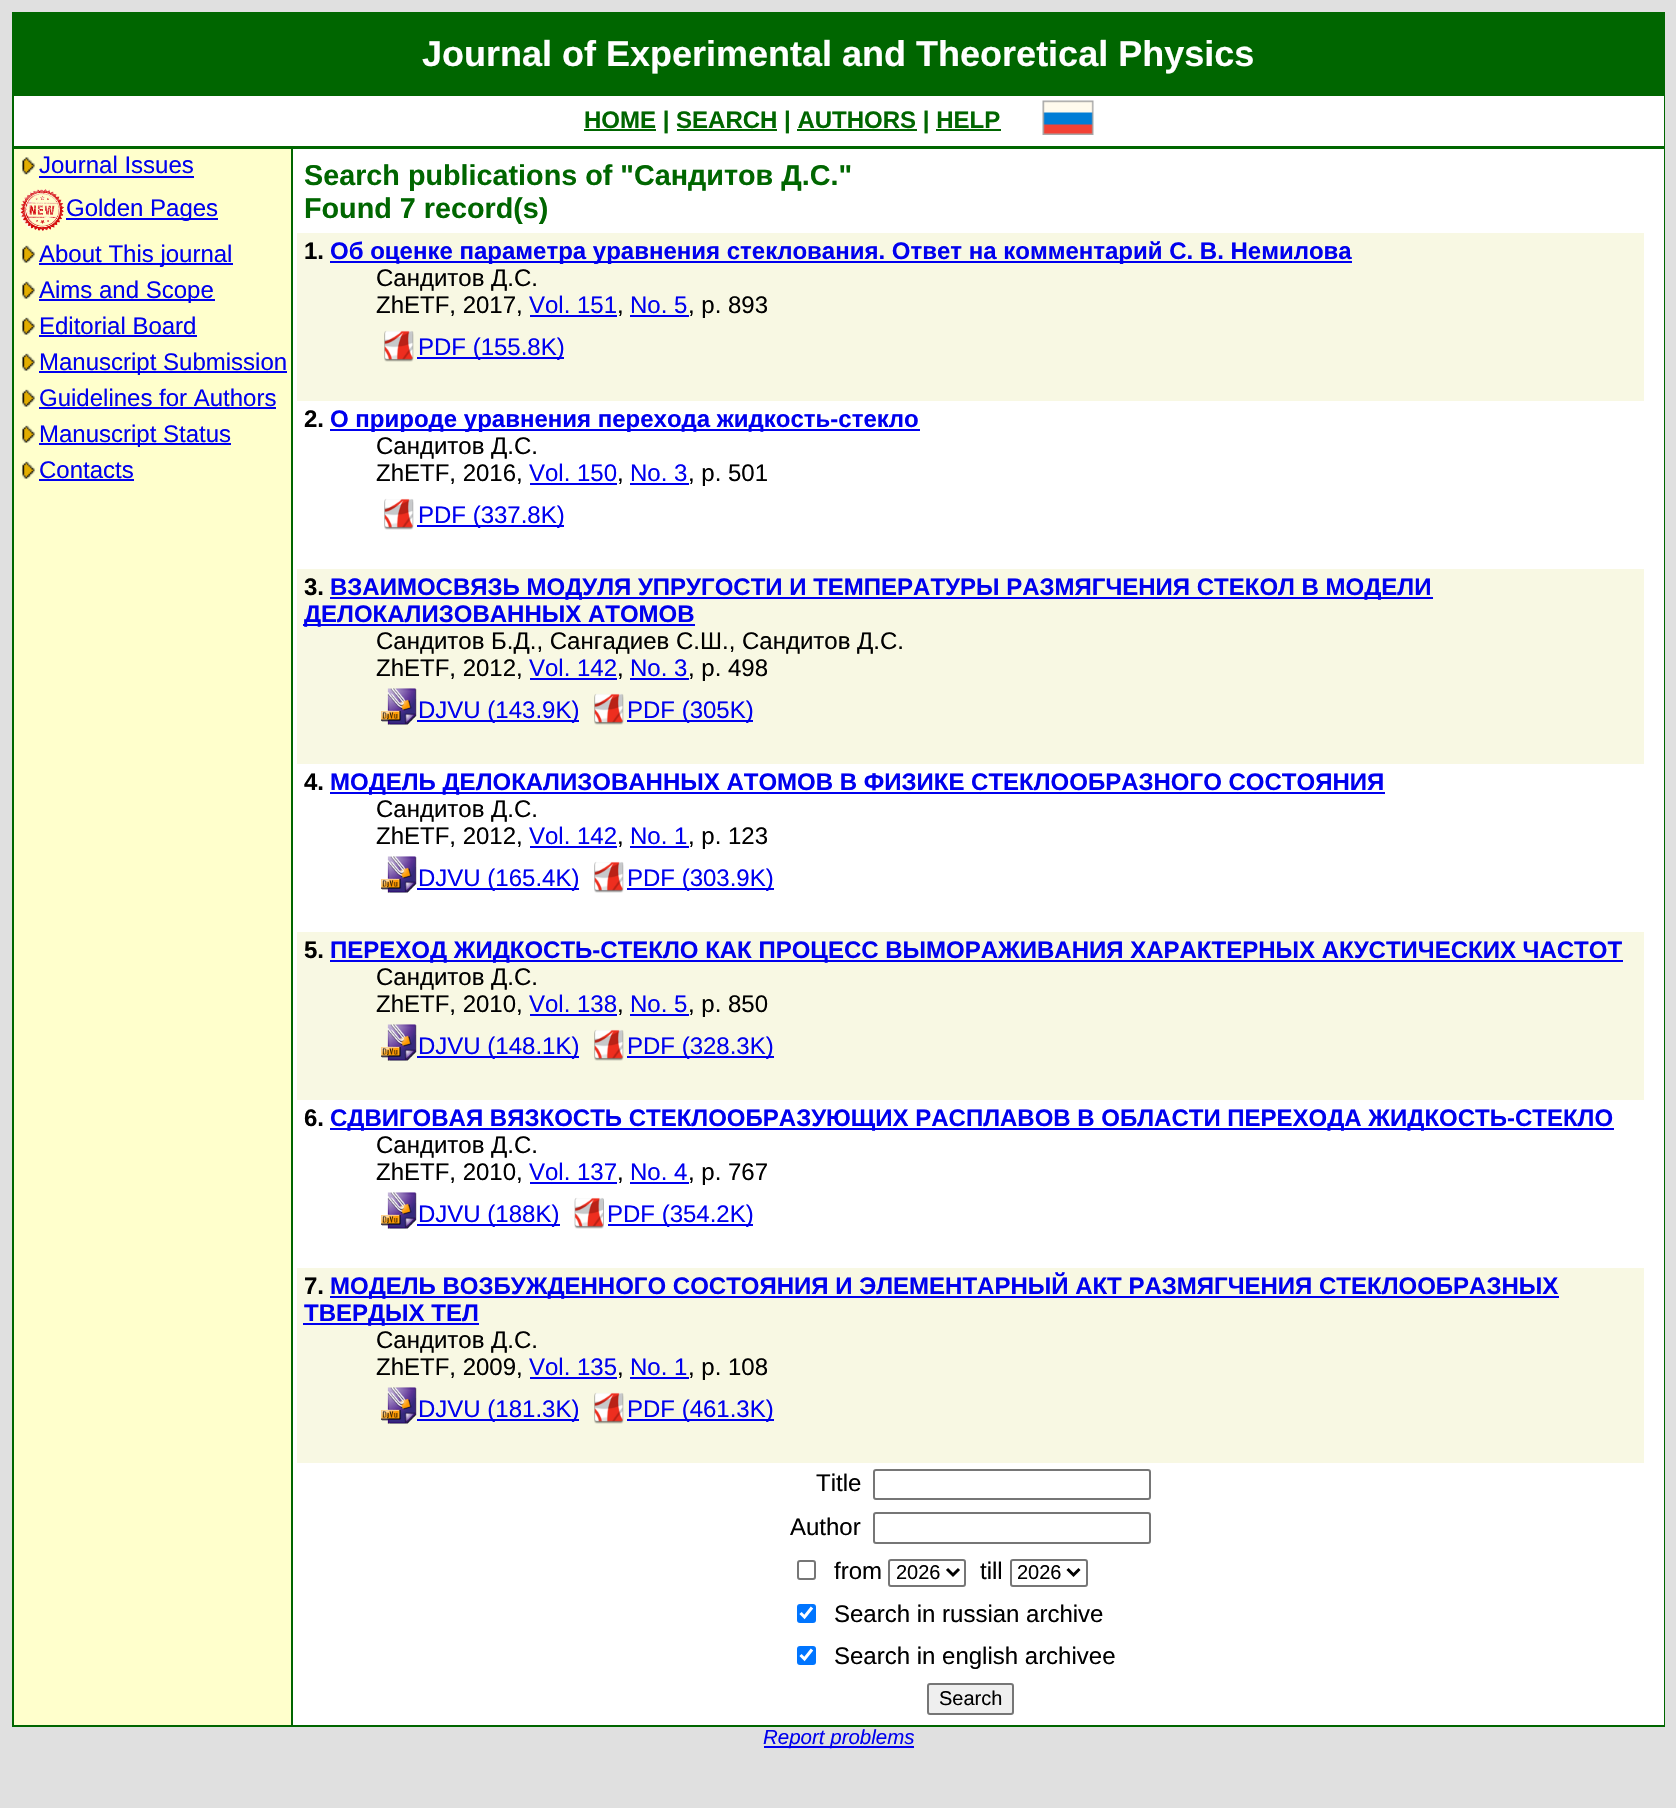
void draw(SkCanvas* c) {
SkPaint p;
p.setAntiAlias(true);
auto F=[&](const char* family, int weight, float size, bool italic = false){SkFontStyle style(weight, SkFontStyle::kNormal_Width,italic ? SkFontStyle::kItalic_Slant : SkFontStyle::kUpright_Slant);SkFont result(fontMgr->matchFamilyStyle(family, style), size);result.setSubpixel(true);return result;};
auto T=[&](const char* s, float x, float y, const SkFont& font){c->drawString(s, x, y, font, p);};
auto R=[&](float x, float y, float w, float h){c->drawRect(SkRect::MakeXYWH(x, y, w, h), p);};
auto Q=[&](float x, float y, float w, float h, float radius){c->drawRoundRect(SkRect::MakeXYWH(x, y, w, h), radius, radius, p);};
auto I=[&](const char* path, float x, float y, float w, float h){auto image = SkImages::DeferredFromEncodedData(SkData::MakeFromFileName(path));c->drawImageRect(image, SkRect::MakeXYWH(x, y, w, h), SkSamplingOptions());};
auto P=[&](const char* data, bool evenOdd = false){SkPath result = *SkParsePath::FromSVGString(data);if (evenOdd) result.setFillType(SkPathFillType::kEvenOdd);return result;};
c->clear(0xffe0e0e0);
p.setColor(0xff006600);
R(12,12,1653,1715);
p.setColor(0xffffffff);
R(14,96,1650,1629);
auto f1 = F("Liberation Sans",700,36);
T("Journal of Experimental and Theoretical Physics",422,66,f1);
p.setColor(0xff006600);
R(584,129,72,2);
auto f2 = F("Liberation Sans",700,24);
T("HOME | SEARCH | AUTHORS | HELP",584,128,f2);
R(677,129,100,2);
R(797,129,120,2);
R(936,129,65,2);
I("1.png",1042,100,52,35);
R(14,146,1650,3);
p.setColor(0xffffffcc);
R(14,149,277,1576);
I("2.png",21,157,14,18);
auto f3 = F("Liberation Sans",400,24);
p.setColor(0xff0000ee);
T("Journal Issues",39,173,f3);
R(39,176,155,2);
I("3.png",19,189,45,42);
R(66,218,152,2);
T("Golden Pages",66,216,f3);
I("4.png",21,245,14,18);
R(39,263,194,2);
T("About This journal",39,262,f3);
I("4.png",21,281,14,18);
R(39,299,176,2);
T("Aims and Scope",39,298,f3);
I("4.png",21,317,14,18);
T("Editorial Board",39,334,f3);
R(39,335,158,2);
I("4.png",21,353,14,18);
R(39,371,248,2);
T("Manuscript Submission",39,370,f3);
I("4.png",21,389,14,18);
T("Guidelines for Authors",39,406,f3);
R(39,407,237,2);
I("4.png",21,425,14,18);
R(39,443,192,2);
T("Manuscript Status",39,442,f3);
I("4.png",21,461,14,18);
T("Contacts",39,478,f3);
R(39,479,95,2);
p.setColor(0xff006600);
R(291,149,2,1576);
auto f4 = F("Liberation Sans",700,28.75);
T("Search publications of \"Сандитов Д.С.\"",304,185,f4);
T("Found 7 record(s)",304,218,f4);
p.setColor(0xfff8f8e3);
R(297,233,1347,168);
p.setColor(0xff000000);
T("1.",304,259,f2);
p.setColor(0xff0000ee);
R(330,261,1022,2);
T("Об оценке параметра уравнения стеклования. Ответ на комментарий С. В. Немилова",330,259,f2);
p.setColor(0xff000000);
T("Сандитов Д.С.",376,286,f3);
T("ZhETF, 2017,",376,313,f3);
p.setColor(0xff0000ee);
T("Vol. 151",529,313,f3);
R(530,315,87,2);
p.setColor(0xff000000);
T(",",617,313,f3);
p.setColor(0xff0000ee);
T("No. 5",630,313,f3);
R(630,315,59,2);
p.setColor(0xff000000);
T(", p. 893",688,313,f3);
I("5.png",384,330,30,32);
p.setColor(0xff0000ee);
R(417,357,147,2);
T("PDF (155.8K)",418,355,f3);
p.setColor(0xff000000);
T("2.",304,427,f2);
p.setColor(0xff0000ee);
R(330,429,590,2);
T("О природе уравнения перехода жидкость-стекло",330,427,f2);
p.setColor(0xff000000);
T("Сандитов Д.С.",376,454,f3);
T("ZhETF, 2016,",376,481,f3);
p.setColor(0xff0000ee);
T("Vol. 150",529,481,f3);
R(530,483,87,2);
p.setColor(0xff000000);
T(",",617,481,f3);
p.setColor(0xff0000ee);
T("No. 3",630,481,f3);
R(630,483,59,2);
p.setColor(0xff000000);
T(", p. 501",688,481,f3);
I("6.png",384,498,30,32);
p.setColor(0xff0000ee);
R(417,525,147,2);
T("PDF (337.8K)",418,523,f3);
p.setColor(0xfff8f8e3);
R(297,569,1347,195);
p.setColor(0xff000000);
T("3.",304,595,f2);
p.setColor(0xff0000ee);
R(330,597,1103,2);
T("ВЗАИМОСВЯЗЬ МОДУЛЯ УПРУГОСТИ И ТЕМПЕРАТУРЫ РАЗМЯГЧЕНИЯ СТЕКОЛ В МОДЕЛИ",330,595,f2);
R(303,624,392,2);
T("ДЕЛОКАЛИЗОВАННЫХ АТОМОВ",304,622,f2);
p.setColor(0xff000000);
T("Сандитов Б.Д., Сангадиев С.Ш., Сандитов Д.С.",376,649,f3);
T("ZhETF, 2012,",376,676,f3);
p.setColor(0xff0000ee);
T("Vol. 142",529,676,f3);
R(530,678,87,2);
p.setColor(0xff000000);
T(",",617,676,f3);
p.setColor(0xff0000ee);
T("No. 3",630,676,f3);
R(630,678,59,2);
p.setColor(0xff000000);
T(", p. 498",688,676,f3);
I("7.png",381,688,36,37);
p.setColor(0xff0000ee);
R(417,720,162,2);
T("DJVU (143.9K)",418,718,f3);
I("5.png",594,693,30,32);
R(627,720,126,2);
T("PDF (305K)",627,718,f3);
p.setColor(0xff000000);
T("4.",304,790,f2);
p.setColor(0xff0000ee);
R(330,792,1055,2);
T("МОДЕЛЬ ДЕЛОКАЛИЗОВАННЫХ АТОМОВ В ФИЗИКЕ СТЕКЛООБРАЗНОГО СОСТОЯНИЯ",330,790,f2);
p.setColor(0xff000000);
T("Сандитов Д.С.",376,817,f3);
T("ZhETF, 2012,",376,844,f3);
p.setColor(0xff0000ee);
T("Vol. 142",529,844,f3);
R(530,846,87,2);
p.setColor(0xff000000);
T(",",617,844,f3);
p.setColor(0xff0000ee);
T("No. 1",630,844,f3);
R(630,846,59,2);
p.setColor(0xff000000);
T(", p. 123",688,844,f3);
I("8.png",381,856,36,37);
p.setColor(0xff0000ee);
R(417,888,162,2);
T("DJVU (165.4K)",418,886,f3);
I("6.png",594,861,30,32);
R(627,888,147,2);
T("PDF (303.9K)",627,886,f3);
p.setColor(0xfff8f8e3);
R(297,932,1347,168);
p.setColor(0xff000000);
T("5.",304,958,f2);
p.setColor(0xff0000ee);
R(330,960,1293,2);
T("ПЕРЕХОД ЖИДКОСТЬ-СТЕКЛО КАК ПРОЦЕСС ВЫМОРАЖИВАНИЯ ХАРАКТЕРНЫХ АКУСТИЧЕСКИХ ЧАСТОТ",330,958,f2);
p.setColor(0xff000000);
T("Сандитов Д.С.",376,985,f3);
T("ZhETF, 2010,",376,1012,f3);
p.setColor(0xff0000ee);
T("Vol. 138",529,1012,f3);
R(530,1014,87,2);
p.setColor(0xff000000);
T(",",617,1012,f3);
p.setColor(0xff0000ee);
T("No. 5",630,1012,f3);
R(630,1014,59,2);
p.setColor(0xff000000);
T(", p. 850",688,1012,f3);
I("7.png",381,1024,36,37);
p.setColor(0xff0000ee);
R(417,1056,162,2);
T("DJVU (148.1K)",418,1054,f3);
I("5.png",594,1029,30,32);
R(627,1056,147,2);
T("PDF (328.3K)",627,1054,f3);
p.setColor(0xff000000);
T("6.",304,1126,f2);
p.setColor(0xff0000ee);
R(330,1128,1284,2);
T("СДВИГОВАЯ ВЯЗКОСТЬ СТЕКЛООБРАЗУЮЩИХ РАСПЛАВОВ В ОБЛАСТИ ПЕРЕХОДА ЖИДКОСТЬ-СТЕКЛО",330,1126,f2);
p.setColor(0xff000000);
T("Сандитов Д.С.",376,1153,f3);
T("ZhETF, 2010,",376,1180,f3);
p.setColor(0xff0000ee);
T("Vol. 137",529,1180,f3);
R(530,1182,87,2);
p.setColor(0xff000000);
T(",",617,1180,f3);
p.setColor(0xff0000ee);
T("No. 4",630,1180,f3);
R(630,1182,59,2);
p.setColor(0xff000000);
T(", p. 767",688,1180,f3);
I("8.png",381,1192,36,37);
p.setColor(0xff0000ee);
R(417,1224,143,2);
T("DJVU (188K)",418,1222,f3);
I("9.png",574,1197,30,32);
R(608,1224,145,2);
T("PDF (354.2K)",607,1222,f3);
p.setColor(0xfff8f8e3);
R(297,1268,1347,195);
p.setColor(0xff000000);
T("7.",304,1294,f2);
p.setColor(0xff0000ee);
R(330,1296,1229,2);
T("МОДЕЛЬ ВОЗБУЖДЕННОГО СОСТОЯНИЯ И ЭЛЕМЕНТАРНЫЙ АКТ РАЗМЯГЧЕНИЯ СТЕКЛООБРАЗНЫХ",330,1294,f2);
R(303,1323,176,2);
T("ТВЕРДЫХ ТЕЛ",304,1321,f2);
p.setColor(0xff000000);
T("Сандитов Д.С.",376,1348,f3);
T("ZhETF, 2009,",376,1375,f3);
p.setColor(0xff0000ee);
T("Vol. 135",529,1375,f3);
R(530,1377,87,2);
p.setColor(0xff000000);
T(",",617,1375,f3);
p.setColor(0xff0000ee);
T("No. 1",630,1375,f3);
R(630,1377,59,2);
p.setColor(0xff000000);
T(", p. 108",688,1375,f3);
I("7.png",381,1387,36,37);
p.setColor(0xff0000ee);
R(417,1419,162,2);
T("DJVU (181.3K)",418,1417,f3);
I("5.png",594,1392,30,32);
R(627,1419,147,2);
T("PDF (461.3K)",627,1417,f3);
p.setColor(0xff000000);
T("Title",816,1491,f3);
p.setStroke(true);
p.setStrokeWidth(2);
p.setColor(0xff767676);
c->drawRoundRect(SkRect::MakeXYWH(874,1470,276,29),2,2,p);
p.setStroke(false);
p.setColor(0xff000000);
T("Author",790,1535,f3);
p.setStroke(true);
p.setColor(0xff767676);
c->drawRoundRect(SkRect::MakeXYWH(874,1513,276,30),2,2,p);
c->drawRoundRect(SkRect::MakeXYWH(798,1561,17,18),2,2,p);
p.setStroke(false);
p.setColor(0xff000000);
T("from",834,1579,f3);
p.setStroke(true);
p.setColor(0xff767676);
c->drawRoundRect(SkRect::MakeXYWH(889,1560,76,26),2,2,p);
p.setStrokeWidth(3);
p.setColor(0xff000000);
c->drawPath(P("M947 1569l6 6l6-6"),p);
auto f5 = F("Liberation Sans",400,20);
p.setStroke(false);
T("2026",896,1579,f5);
T("till",980,1579,f3);
p.setStroke(true);
p.setStrokeWidth(2);
p.setColor(0xff767676);
c->drawRoundRect(SkRect::MakeXYWH(1011,1560,76,26),2,2,p);
p.setStrokeWidth(3);
p.setColor(0xff000000);
c->drawPath(P("M1067.5 1569l6 6l6-6"),p);
p.setStroke(false);
T("2026",1017,1579,f5);
p.setColor(0xff0075ff);
Q(797,1604,19,19,3);
p.setStroke(true);
p.setStrokeWidth(3.1);
p.setColor(0xffffffff);
c->drawPath(P("M800.5 1613l4 4l7.5-9.5"),p);
p.setStroke(false);
p.setColor(0xff000000);
T("Search in russian archive",834,1622,f3);
p.setColor(0xff0075ff);
Q(797,1646,19,19,3);
p.setStroke(true);
p.setColor(0xffffffff);
c->drawPath(P("M800.5 1655l4 4l7.5-9.5"),p);
p.setStroke(false);
p.setColor(0xff000000);
T("Search in english archiveе",834,1664,f3);
p.setColor(0xffefefef);
c->drawRoundRect(SkRect::MakeXYWH(928,1684,85,30),2,2,p);
p.setStroke(true);
p.setStrokeWidth(2);
p.setColor(0xff767676);
c->drawRoundRect(SkRect::MakeXYWH(928,1684,85,30),2,2,p);
p.setStroke(false);
p.setColor(0xff000000);
T("Search",939,1705,f5);
p.setColor(0xff0000ee);
R(764,1746,150,2);
auto f6 = F("Liberation Sans",400,20.5,true);
T("Report problems",763,1744,f6);
}
